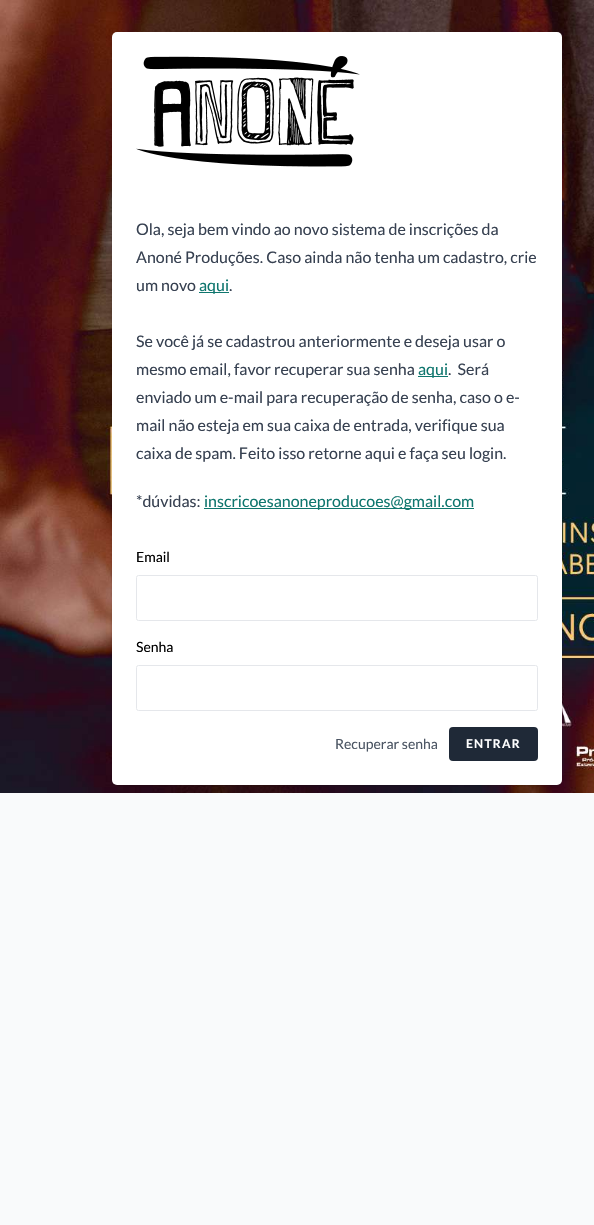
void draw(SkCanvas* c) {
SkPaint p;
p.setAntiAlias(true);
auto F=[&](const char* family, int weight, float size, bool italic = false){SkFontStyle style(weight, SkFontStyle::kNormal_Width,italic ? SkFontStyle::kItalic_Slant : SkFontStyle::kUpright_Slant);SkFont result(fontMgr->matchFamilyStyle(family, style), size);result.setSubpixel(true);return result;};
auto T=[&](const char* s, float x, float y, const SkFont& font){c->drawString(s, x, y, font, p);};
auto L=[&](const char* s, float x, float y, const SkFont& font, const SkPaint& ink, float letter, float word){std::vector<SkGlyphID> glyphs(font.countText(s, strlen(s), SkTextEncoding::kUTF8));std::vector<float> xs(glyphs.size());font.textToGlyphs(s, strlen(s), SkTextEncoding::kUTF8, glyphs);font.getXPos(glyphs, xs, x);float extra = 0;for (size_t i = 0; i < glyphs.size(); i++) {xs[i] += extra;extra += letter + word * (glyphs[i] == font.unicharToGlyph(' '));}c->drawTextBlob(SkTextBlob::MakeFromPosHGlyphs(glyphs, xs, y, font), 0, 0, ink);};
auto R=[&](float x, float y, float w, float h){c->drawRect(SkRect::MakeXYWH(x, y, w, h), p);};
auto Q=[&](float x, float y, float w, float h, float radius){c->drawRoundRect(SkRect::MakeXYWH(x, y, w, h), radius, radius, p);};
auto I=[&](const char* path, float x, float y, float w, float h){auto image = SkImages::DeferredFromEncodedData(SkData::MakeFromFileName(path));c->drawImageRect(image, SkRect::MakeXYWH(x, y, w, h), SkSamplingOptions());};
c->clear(0xfff9fafb);
I("1.png",0,0,594,793);
p.setColor(0x1a000000);
p.setMaskFilter(SkMaskFilter::MakeBlur(kNormal_SkBlurStyle, 1));
c->drawRoundRect(SkRect::MakeXYWH(113,34,448,751),4,4,p);
p.setMaskFilter(nullptr);
p.setMaskFilter(SkMaskFilter::MakeBlur(kNormal_SkBlurStyle, 1.5));
c->drawRoundRect(SkRect::MakeXYWH(112,33,450,753),5,5,p);
p.setMaskFilter(nullptr);
p.setColor(0xffffffff);
Q(112,32,450,753,5);
I("2.png",136,56,224,111);
auto f1 = F("Lato",400,16);
p.setColor(0xff374151);
T("Ola, seja bem vindo ao novo sistema de inscrições da",136,235,f1);
T("Anoné Produções. Caso ainda não tenha um cadastro, crie",136,263,f1);
T("um novo",136,291,f1);
p.setColor(0xff0f766e);
R(199,292,30,1);
T("aqui",199,291,f1);
p.setColor(0xff374151);
T(".",229,291,f1);
T("Se você já se cadastrou anteriormente e deseja usar o",136,347,f1);
T("mesmo email, favor recuperar sua senha",136,375,f1);
p.setColor(0xff0f766e);
R(418,376,30,1);
T("aqui",418,375,f1);
p.setColor(0xff374151);
T(".  Será",448,375,f1);
T("enviado um e-mail para recuperação de senha, caso o e-",136,403,f1);
T("mail não esteja em sua caixa de entrada, verifique sua",136,431,f1);
T("caixa de spam. Feito isso retorne aqui e faça seu login.",136,459,f1);
T("*dúvidas:",136,507,f1);
p.setColor(0xff0f766e);
R(204,508,270,1);
T("inscricoesanoneproducoes@gmail.com",204,507,f1);
auto f2 = F("Lato",400,14);
p.setColor(0xff000000);
T("Email",136,562,f2);
p.setStroke(true);
p.setStrokeWidth(1);
p.setColor(0xffe5e7eb);
c->drawRoundRect(SkRect::MakeXYWH(136.5,575.5,401,45),2,2,p);
p.setStroke(false);
p.setColor(0xff000000);
T("Senha",136,652,f2);
p.setStroke(true);
p.setColor(0xffe5e7eb);
c->drawRoundRect(SkRect::MakeXYWH(136.5,665.5,401,45),2,2,p);
p.setStroke(false);
p.setColor(0xff4b5563);
T("Recuperar senha",335,749,f2);
p.setColor(0xff1f2937);
Q(449,727,89,34,4);
auto f3 = F("Lato",700,12);
p.setColor(0xffffffff);
L("ENTRAR",466,748,f3,p,1.25,0);
}
